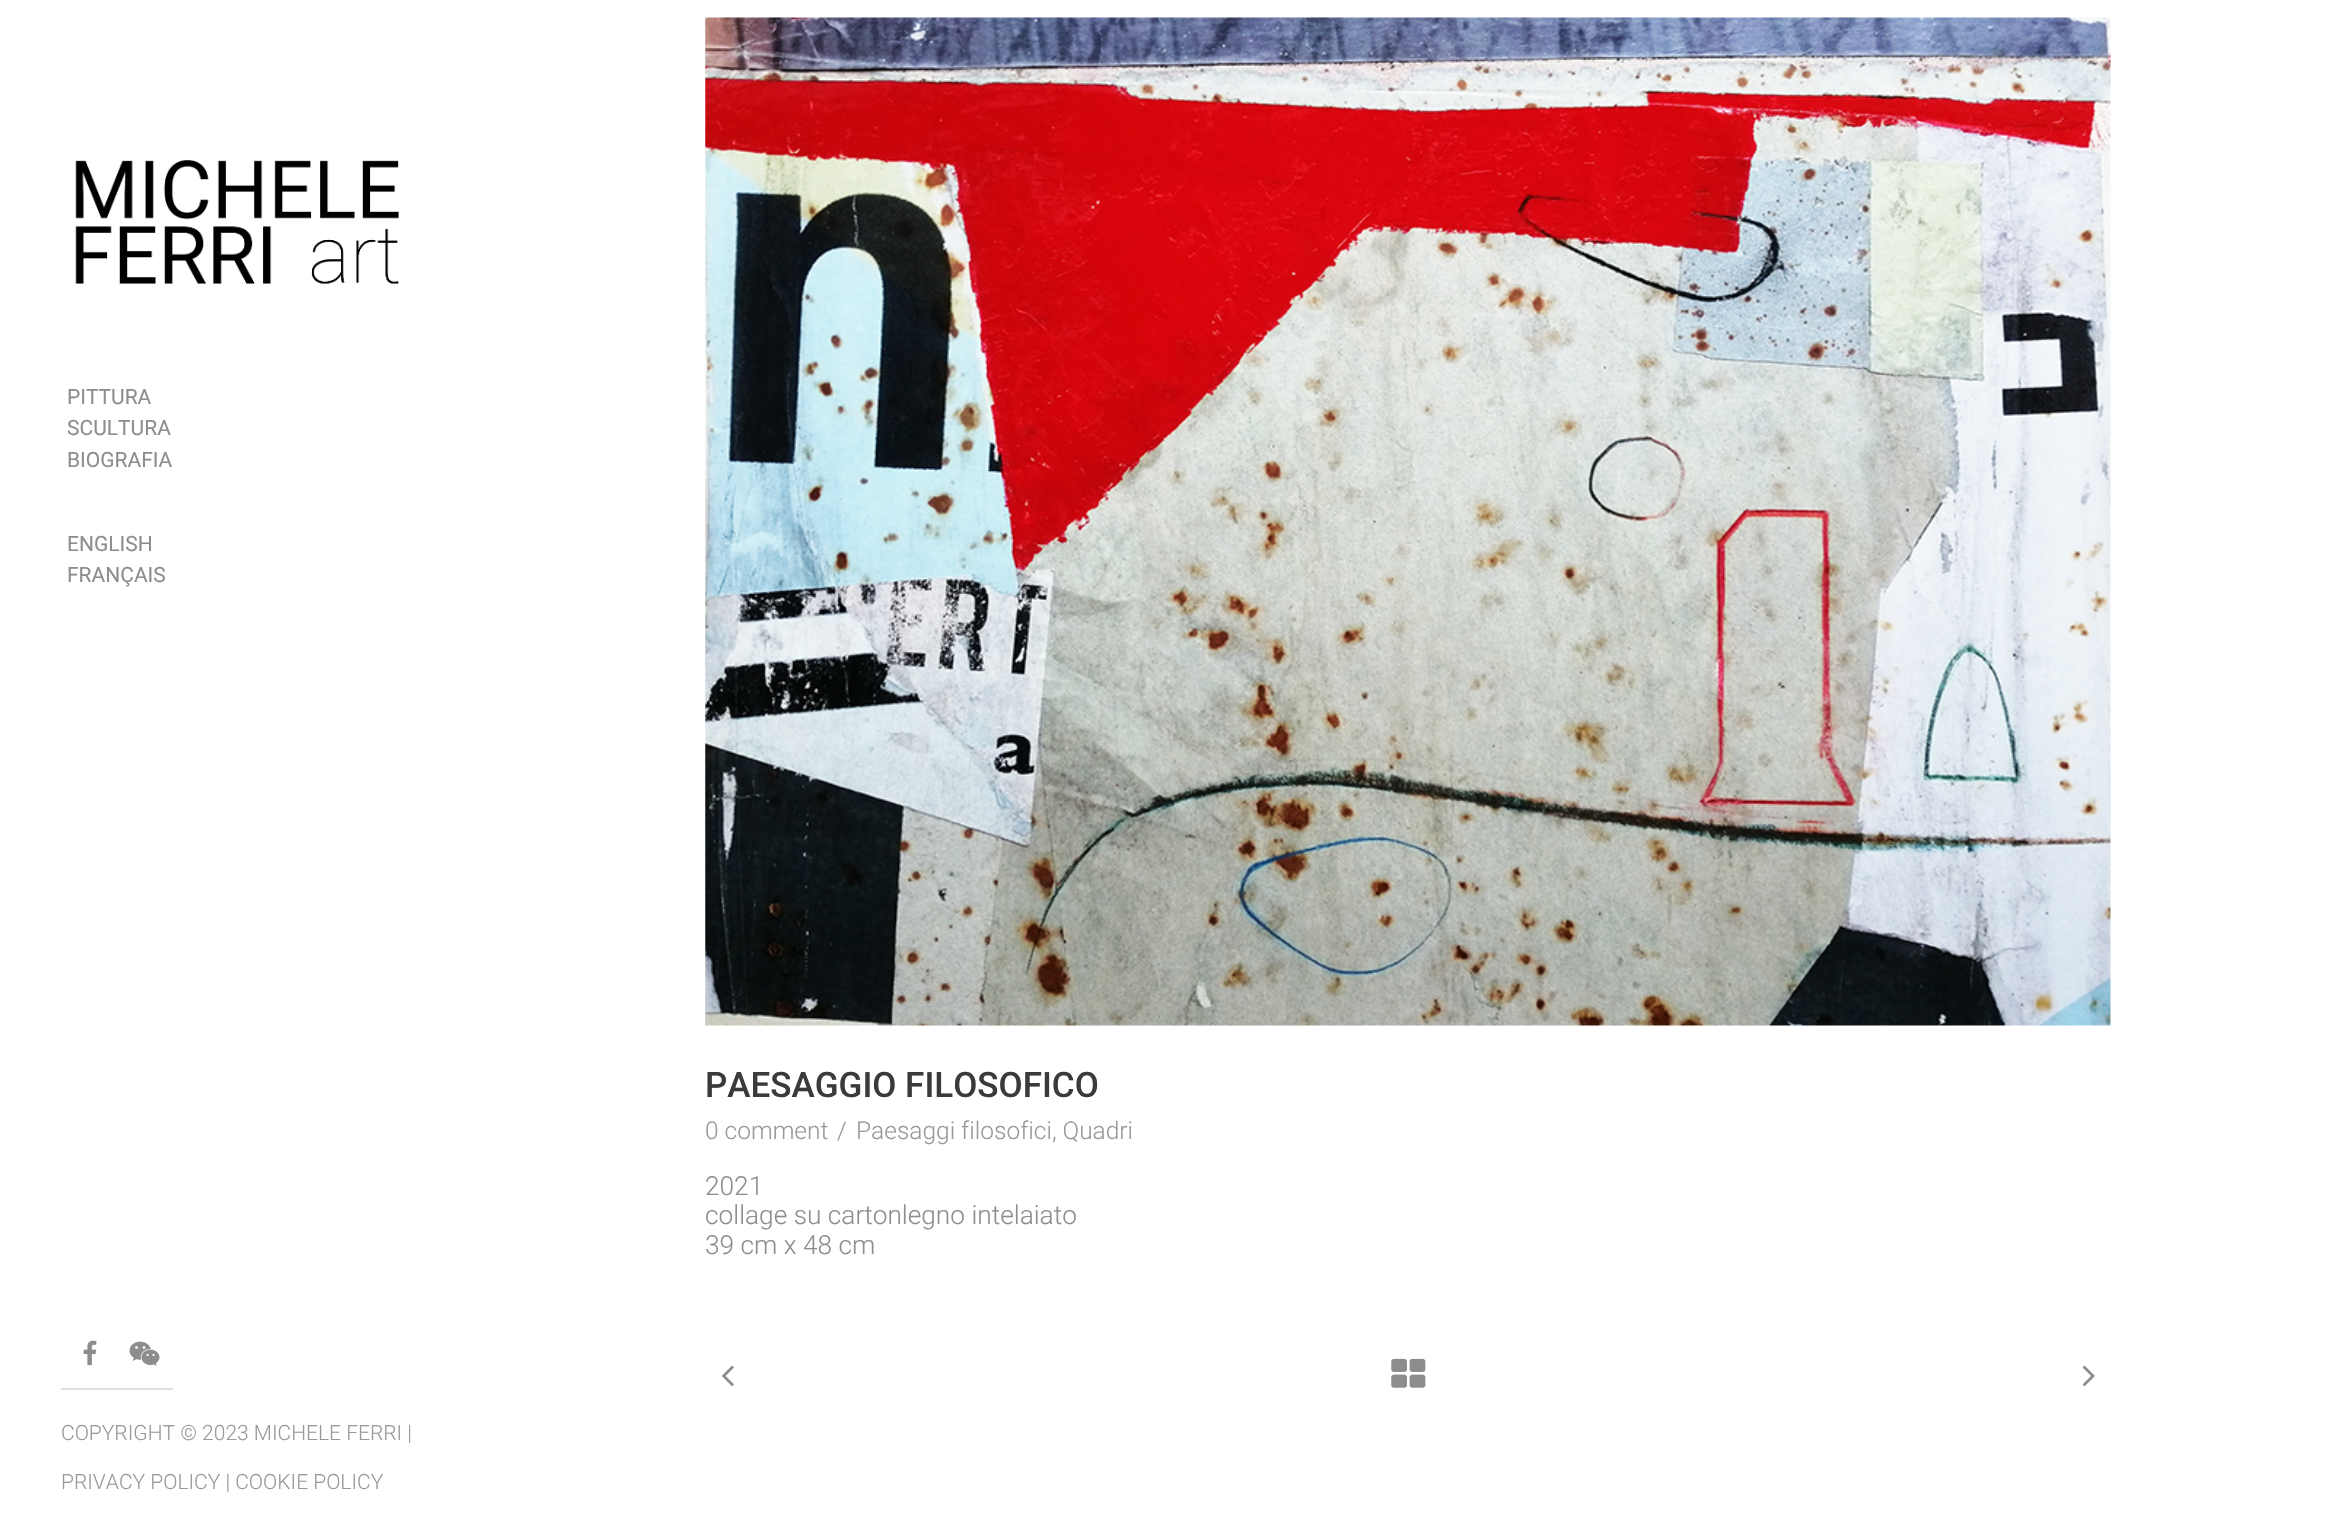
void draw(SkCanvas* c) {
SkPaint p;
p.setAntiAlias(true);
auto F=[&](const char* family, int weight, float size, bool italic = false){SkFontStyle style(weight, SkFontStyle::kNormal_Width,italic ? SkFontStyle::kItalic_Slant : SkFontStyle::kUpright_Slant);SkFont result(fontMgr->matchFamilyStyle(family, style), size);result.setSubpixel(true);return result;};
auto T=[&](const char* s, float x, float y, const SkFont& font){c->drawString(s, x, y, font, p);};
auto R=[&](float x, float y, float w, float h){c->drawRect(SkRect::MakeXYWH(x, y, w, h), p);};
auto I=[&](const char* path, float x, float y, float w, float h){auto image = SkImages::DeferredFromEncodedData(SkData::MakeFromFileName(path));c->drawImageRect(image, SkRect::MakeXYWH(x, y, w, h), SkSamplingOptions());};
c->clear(0xffffffff);
I("1.png",75,159,324,125);
auto f1 = F("Roboto",400,21);
p.setColor(0xff8d8d8d);
T("PITTURA",67,404,f1);
T("SCULTURA",67,435,f1);
T("BIOGRAFIA",67,467,f1);
T("ENGLISH",67,551,f1);
T("FRANÇAIS",67,582,f1);
I("2.png",705,17,1406,1009);
auto f2 = F("Roboto",500,35);
p.setColor(0xff3a3a3a);
T("PAESAGGIO FILOSOFICO",705,1097,f2);
auto f3 = F("Roboto",300,24.5);
p.setColor(0xff999999);
T("0 comment",705,1139,f3);
T("/",837,1139,f3);
T("Paesaggi filosofici, Quadri",856,1139,f3);
auto f4 = F("Roboto",300,26.25);
p.setColor(0xff8d8d8d);
T("2021",705,1195,f4);
T("collage su cartonlegno intelaiato",705,1224,f4);
T("39 cm x 48 cm",705,1254,f4);
I("3.png",722,1365,12,22);
I("4.png",1391,1358,35,30);
I("5.png",2082,1365,13,22);
p.setColor(0xffe0e0e0);
R(61,1388,112,2);
I("6.png",83,1340,14,26);
I("7.png",129,1341,31,25);
auto f5 = F("Roboto",300,21);
p.setColor(0xff999999);
T("COPYRIGHT © 2023 MICHELE FERRI |",61,1440,f5);
T("PRIVACY POLICY | COOKIE POLICY",61,1489,f5);
}
